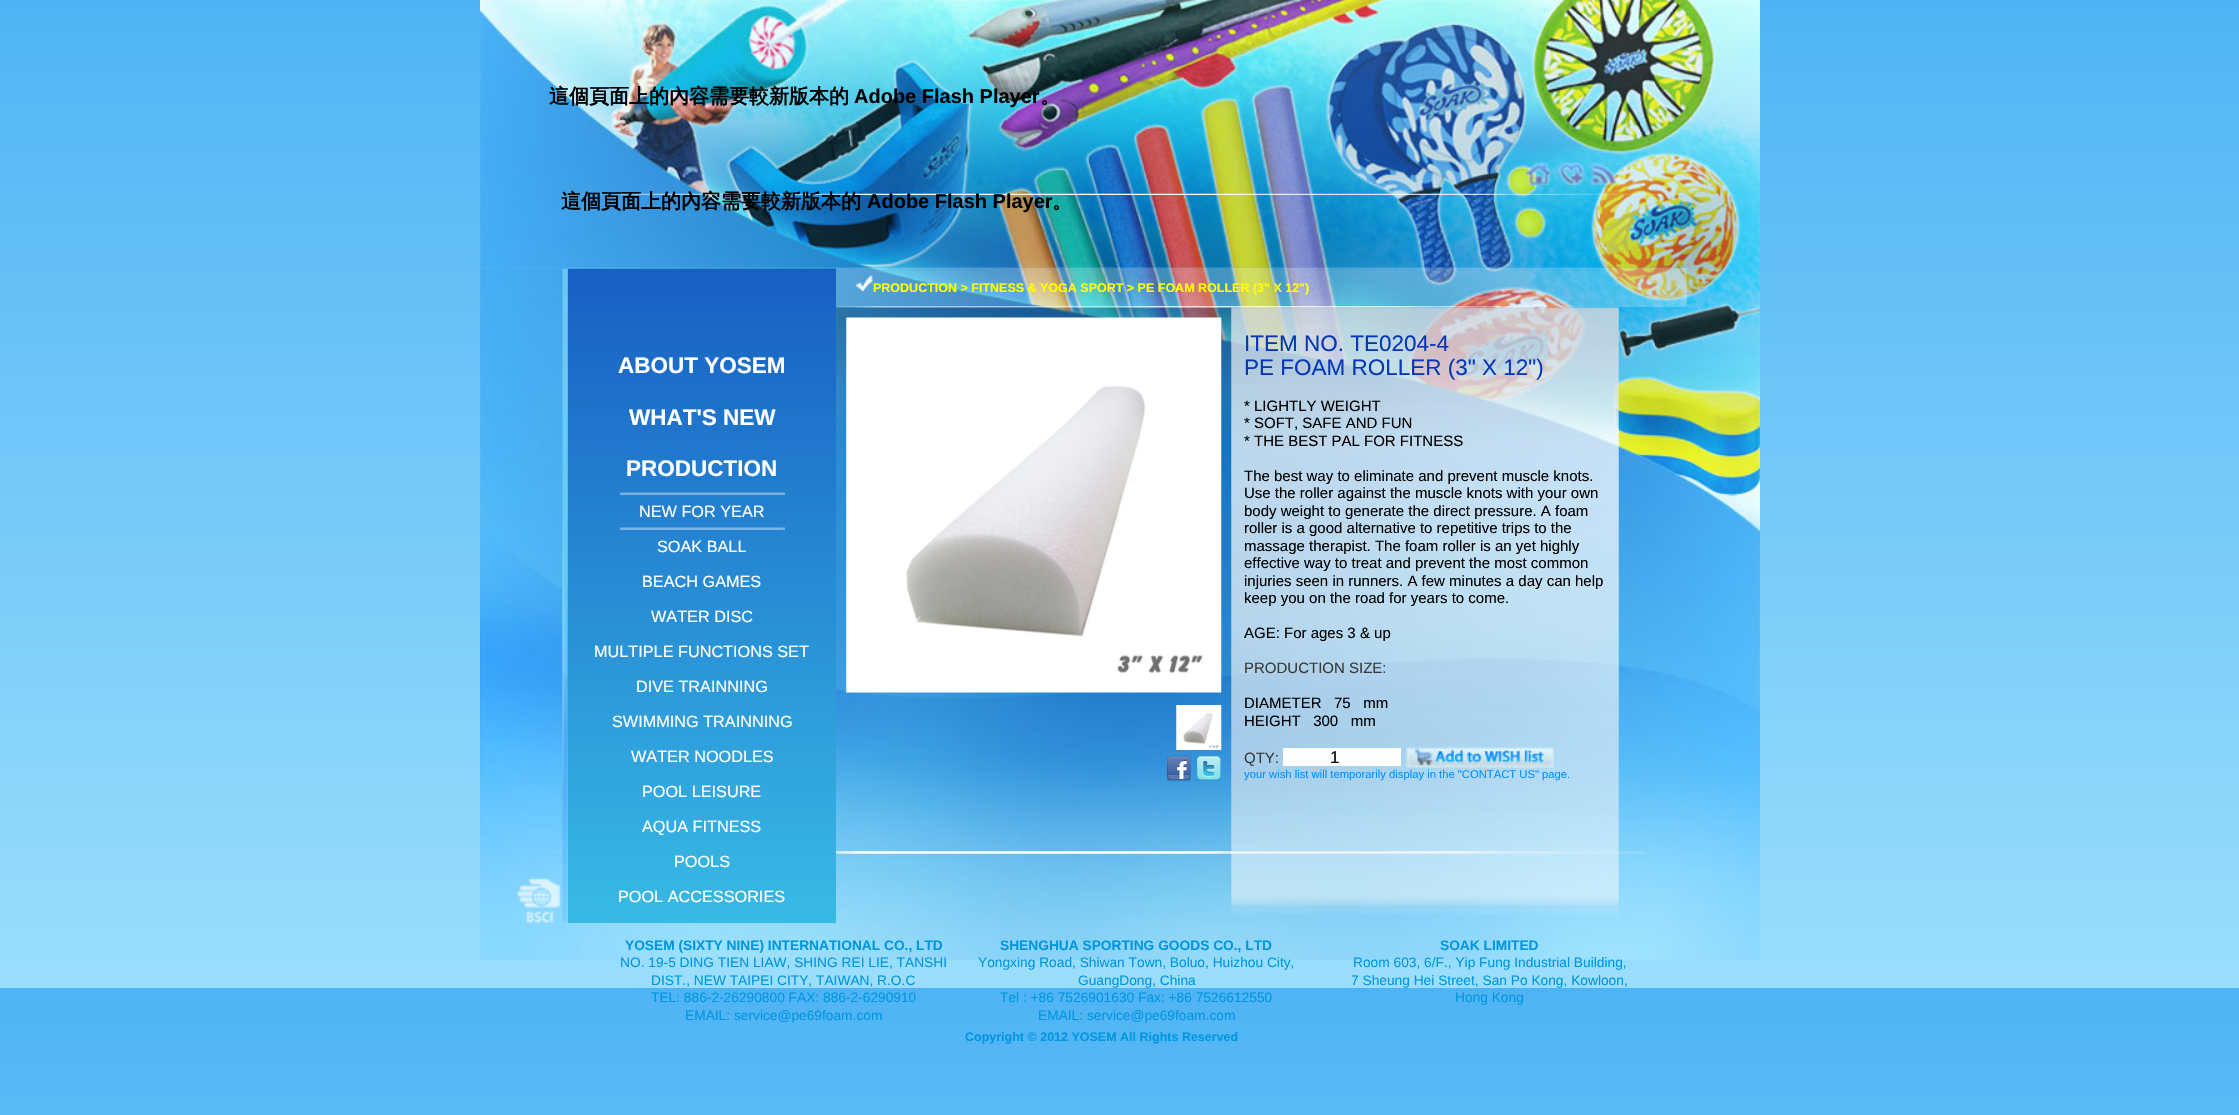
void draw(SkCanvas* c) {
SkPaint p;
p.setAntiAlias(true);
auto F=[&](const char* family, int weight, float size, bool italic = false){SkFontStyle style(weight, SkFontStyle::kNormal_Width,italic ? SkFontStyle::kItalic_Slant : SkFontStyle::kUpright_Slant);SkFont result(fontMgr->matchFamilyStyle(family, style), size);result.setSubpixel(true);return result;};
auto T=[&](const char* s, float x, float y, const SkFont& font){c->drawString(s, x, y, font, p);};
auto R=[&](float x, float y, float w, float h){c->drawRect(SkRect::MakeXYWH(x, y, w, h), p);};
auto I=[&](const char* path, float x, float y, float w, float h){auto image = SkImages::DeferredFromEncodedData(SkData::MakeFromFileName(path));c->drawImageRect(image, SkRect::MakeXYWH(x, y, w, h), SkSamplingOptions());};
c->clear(0xffffffff);
{
const SkColor colors[] = {0xff4fb4f4,0xff9bdefc};
const float stops[] = {0,1};
const SkPoint ends[] = {{1120,0}, {1120,988}};
p.setShader(SkGradientShader::MakeLinear(ends, colors, stops, 2, SkTileMode::kClamp));
p.setAlpha(255);
}
R(0,0,2239,988);
{
const SkColor colors[] = {0xff4fb4f4,0xff9bdefc};
const float stops[] = {0,1};
const SkPoint ends[] = {{1120,987}, {1120,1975}};
p.setShader(SkGradientShader::MakeLinear(ends, colors, stops, 2, SkTileMode::kClamp));
p.setAlpha(255);
}
R(0,988,2239,127);
I("1.png",480,0,160,268);
I("2.png",640,0,160,268);
I("3.png",800,0,160,268);
I("4.png",960,0,160,268);
I("5.png",1120,0,160,268);
I("6.png",1280,0,160,268);
I("7.png",1440,0,160,268);
I("8.png",1600,0,160,268);
I("9.png",480,267,160,268);
I("10.png",640,267,160,2);
I("11.png",800,267,160,268);
I("12.png",960,267,160,51);
I("13.png",1120,267,160,268);
I("14.png",1280,267,160,268);
I("15.png",1440,267,160,268);
I("16.png",1600,267,160,268);
I("17.png",480,535,160,425);
I("18.png",640,923,160,37);
I("19.png",800,535,160,425);
I("20.png",960,692,160,268);
I("21.png",1120,535,160,425);
I("22.png",1280,535,160,425);
I("23.png",1440,535,160,425);
I("24.png",1600,535,160,425);
auto f1 = F("WenQuanYi Zen Hei",700,20);
p.setShader(nullptr);
p.setColor(0xff000000);
T("這個頁面上的內容需要較新版本的",549,103,f1);
auto f2 = F("Liberation Sans",700,20);
T("Adobe Flash Player",854,103,f2);
T("。",1040,103,f1);
I("25.png",1526,162,26,23);
I("26.png",1558,162,26,23);
I("27.png",1591,162,26,23);
I("28.png",567,193,1090,2);
T("這個頁面上的內容需要較新版本的",561,208,f1);
T("Adobe Flash Player",867,208,f2);
T("。",1052,208,f1);
I("29.png",557,851,1089,3);
I("30.png",517,878,46,45);
I("31.png",562,268,6,655);
{
const SkColor colors[] = {0xff185fc3,0xff38bae5};
const float stops[] = {0,1};
const SkPoint ends[] = {{702,269}, {702,923}};
p.setShader(SkGradientShader::MakeLinear(ends, colors, stops, 2, SkTileMode::kClamp));
p.setAlpha(255);
}
R(568,269,268,654);
auto f3 = F("Liberation Sans",700,22.5);
p.setShader(nullptr);
p.setColor(0xffffffff);
T("ABOUT YOSEM",618,373,f3);
T("WHAT'S NEW",629,425,f3);
I("32.png",620,492,165,3);
T("PRODUCTION",626,476,f3);
I("33.png",620,527,165,3);
auto f4 = F("Liberation Sans",400,16.25);
T("NEW FOR YEAR",639,517,f4);
T("SOAK BALL",657,552,f4);
T("BEACH GAMES",642,587,f4);
T("WATER DISC",651,622,f4);
T("MULTIPLE FUNCTIONS SET",594,657,f4);
T("DIVE TRAINNING",636,692,f4);
T("SWIMMING TRAINNING",612,727,f4);
T("WATER NOODLES",631,762,f4);
T("POOL LEISURE",642,797,f4);
T("AQUA FITNESS",642,832,f4);
T("POOLS",674,867,f4);
T("POOL ACCESSORIES",618,902,f4);
p.setColor(0x3bffffff);
R(836,268,851,39);
I("34.png",855,275,18,17);
auto f5 = F("Liberation Sans",700,12.5);
p.setColor(0xffffff00);
T("PRODUCTION > FITNESS & YOGA SPORT > PE FOAM ROLLER (3\" X 12\")",873,292,f5);
I("35.png",836,306,750,2);
I("36.png",836,307,396,127);
I("37.png",846,317,376,376);
I("38.png",1176,705,46,45);
I("39.png",1166,756,25,26);
I("40.png",1197,756,24,25);
I("41.png",1231,307,388,608);
auto f6 = F("Liberation Sans",400,22.5);
p.setColor(0xff0638b5);
T("ITEM NO. TE0204-4",1244,351,f6);
T("PE FOAM ROLLER (3\" X 12\")",1244,375,f6);
auto f7 = F("Liberation Sans",400,15);
p.setColor(0xff000000);
T("* LIGHTLY WEIGHT",1244,411,f7);
T("* SOFT, SAFE AND FUN",1244,428,f7);
T("* THE BEST PAL FOR FITNESS",1244,446,f7);
T("The best way to eliminate and prevent muscle knots.",1244,481,f7);
T("Use the roller against the muscle knots with your own",1244,498,f7);
T("body weight to generate the direct pressure. A foam",1244,516,f7);
T("roller is a good alternative to repetitive trips to the",1244,533,f7);
T("massage therapist. The foam roller is an yet highly",1244,551,f7);
T("effective way to treat and prevent the most common",1244,568,f7);
T("injuries seen in runners. A few minutes a day can help",1244,586,f7);
T("keep you on the road for years to come.",1244,603,f7);
T("AGE: For ages 3 & up",1244,638,f7);
p.setColor(0xff3a3a3a);
T("PRODUCTION SIZE:",1244,673,f7);
p.setColor(0xff000000);
T("DIAMETER   75   mm",1244,708,f7);
T("HEIGHT   300   mm",1244,726,f7);
p.setColor(0xff3a3a3a);
T("QTY:",1244,763,f7);
p.setColor(0xffffffff);
R(1283,748,118,18);
auto f8 = F("Liberation Sans",400,17);
p.setColor(0xff000000);
T("1",1330,763,f8);
I("42.png",1406,747,148,21);
auto f9 = F("Liberation Sans",400,11.25);
p.setColor(0xff0090ff);
T("your wish list will temporarily display in the \"CONTACT US\" page.",1244,778,f9);
auto f10 = F("Liberation Sans",700,13.75);
p.setColor(0xff0096e1);
T("YOSEM (SIXTY NINE) INTERNATIONAL CO., LTD",625,950,f10);
auto f11 = F("Liberation Sans",400,13.75);
T("NO. 19-5 DING TIEN LIAW, SHING REI LIE, TANSHI",620,967,f11);
T("DIST., NEW TAIPEI CITY, TAIWAN, R.O.C",651,985,f11);
T("TEL: 886-2-26290800 FAX: 886-2-6290910",651,1002,f11);
T("EMAIL: service@pe69foam.com",685,1020,f11);
T("SHENGHUA SPORTING GOODS CO., LTD",1000,950,f10);
T("Yongxing Road, Shiwan Town, Boluo, Huizhou City,",978,967,f11);
T("GuangDong, China",1078,985,f11);
T("Tel : +86 7526901630 Fax: +86 7526612550",1000,1002,f11);
T("EMAIL: service@pe69foam.com",1038,1020,f11);
T("SOAK LIMITED",1440,950,f10);
T("Room 603, 6/F., Yip Fung Industrial Building,",1353,967,f11);
T("7 Sheung Hei Street, San Po Kong, Kowloon,",1351,985,f11);
T("Hong Kong",1455,1002,f11);
T("Copyright © 2012 YOSEM All Rights Reserved",965,1041,f5);
}
